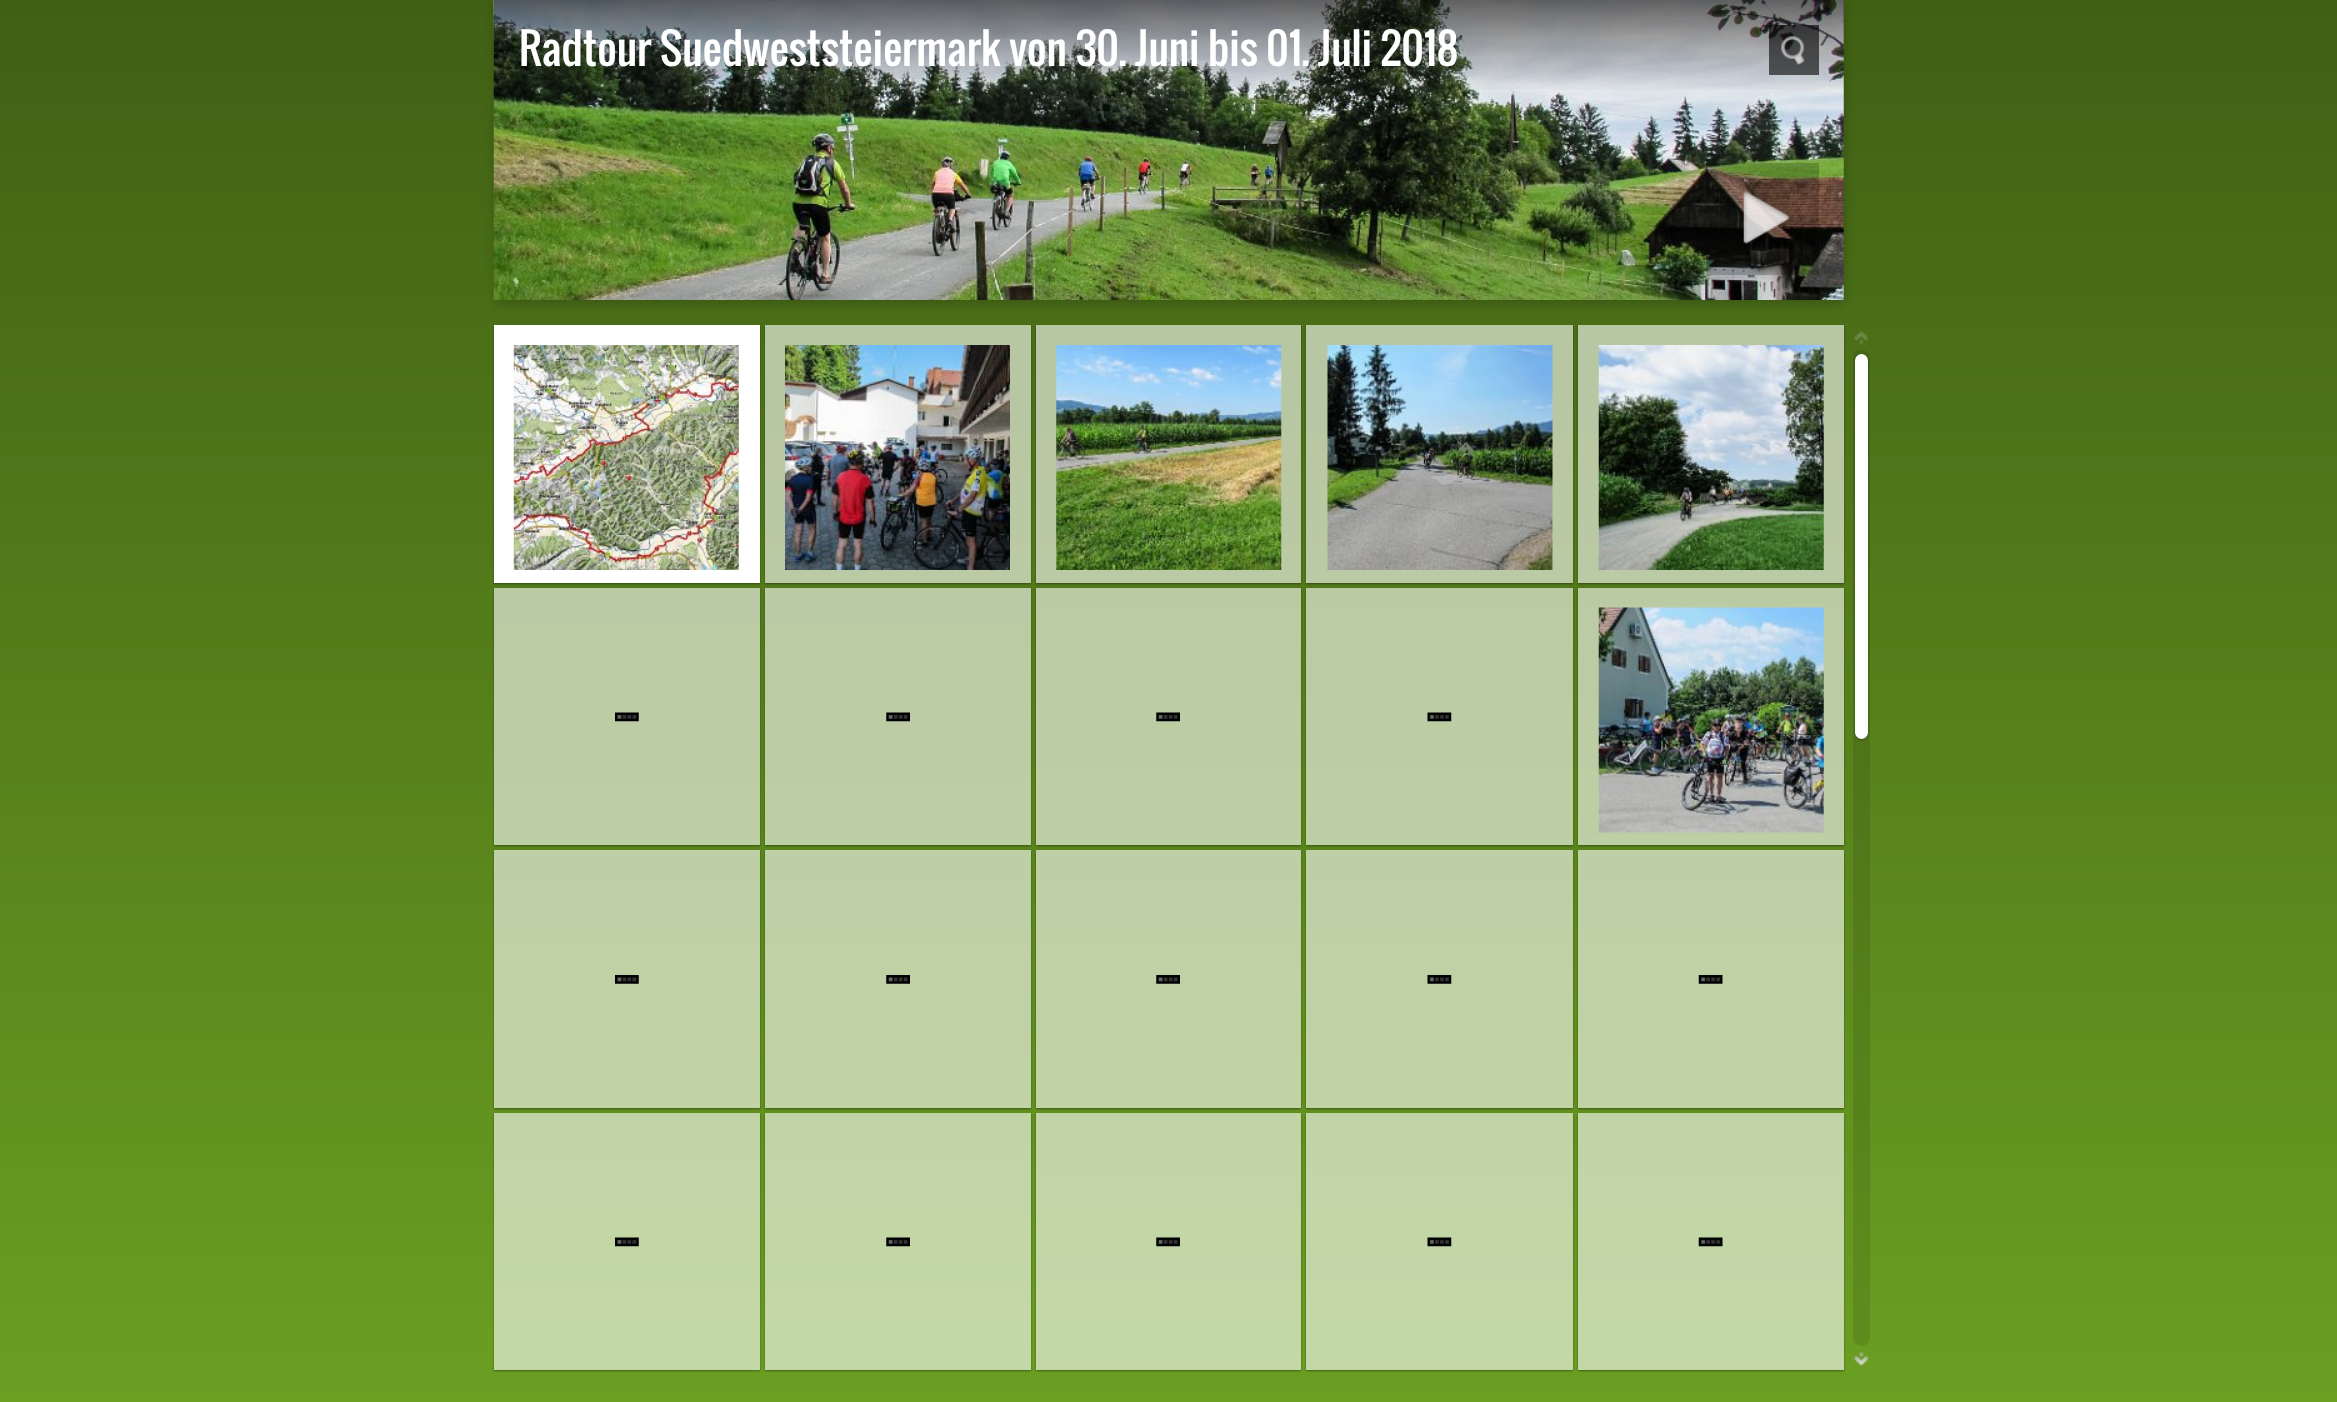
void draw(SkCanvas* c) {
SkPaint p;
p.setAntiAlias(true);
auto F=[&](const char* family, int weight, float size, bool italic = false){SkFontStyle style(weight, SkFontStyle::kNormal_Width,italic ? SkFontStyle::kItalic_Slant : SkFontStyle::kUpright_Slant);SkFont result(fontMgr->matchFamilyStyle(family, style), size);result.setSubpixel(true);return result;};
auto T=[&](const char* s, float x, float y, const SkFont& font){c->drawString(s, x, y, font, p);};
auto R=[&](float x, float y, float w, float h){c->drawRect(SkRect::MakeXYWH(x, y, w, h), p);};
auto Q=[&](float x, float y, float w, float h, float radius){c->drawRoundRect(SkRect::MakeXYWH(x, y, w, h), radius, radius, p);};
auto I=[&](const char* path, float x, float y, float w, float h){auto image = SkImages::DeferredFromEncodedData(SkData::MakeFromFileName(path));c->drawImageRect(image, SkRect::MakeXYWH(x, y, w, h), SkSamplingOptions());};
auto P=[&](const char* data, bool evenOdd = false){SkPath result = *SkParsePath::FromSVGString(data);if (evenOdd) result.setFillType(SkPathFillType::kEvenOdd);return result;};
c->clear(0xffffffff);
{
const SkColor colors[] = {0xff406014,0xff6b9f22};
const float stops[] = {0,1};
const SkPoint ends[] = {{1169,0}, {1169,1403}};
p.setShader(SkGradientShader::MakeLinear(ends, colors, stops, 2, SkTileMode::kClamp));
p.setAlpha(255);
}
R(0,0,2337,1402);
{
const SkColor colors[] = {0xffb3bfa1,0xffc4d9a7};
const float stops[] = {0,1};
const SkPoint ends[] = {{1169,0}, {1169,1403}};
p.setShader(SkGradientShader::MakeLinear(ends, colors, stops, 2, SkTileMode::kClamp));
p.setAlpha(255);
}
R(765,1113,266,257);
R(494,1113,266,257);
R(765,588,266,257);
R(494,588,266,257);
p.setShader(nullptr);
p.setColor(0x33000000);
p.setMaskFilter(SkMaskFilter::MakeBlur(kNormal_SkBlurStyle, 5));
c->drawRect(SkRect::MakeXYWH(495,4,1350,300),p);
p.setMaskFilter(nullptr);
I("1.png",493,0,1351,300);
{
const SkColor colors[] = {0x99000000,0x00000000};
const float stops[] = {0,1};
const SkPoint ends[] = {{1169,0}, {1169,93}};
p.setShader(SkGradientShader::MakeLinear(ends, colors, stops, 2, SkTileMode::kClamp));
p.setAlpha(255);
}
R(494,0,1350,90);
auto f1 = F("Oswald",400,42);
p.setShader(nullptr);
p.setColor(0xffffffff);
T("Radtour Suedweststeiermark von 30. Juni bis 01. Juli 2018",519,66,f1);
p.setColor(0x99000000);
R(1769,25,50,50);
I("2.png",1781,36,24,29);
p.setColor(0x33000000);
R(1706,163,113,112);
I("3.png",1743,191,46,53);
p.setColor(0x66000000);
p.setMaskFilter(SkMaskFilter::MakeBlur(kNormal_SkBlurStyle, 1));
c->drawRect(SkRect::MakeXYWH(494,326,266,258),p);
p.setMaskFilter(nullptr);
p.setColor(0xffffffff);
R(494,325,266,258);
I("4.png",513,345,226,225);
c->save();
c->clipPath(P("M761 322h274v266h-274zm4 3h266v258h-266z",true),true);
p.setColor(0x66000000);
p.setMaskFilter(SkMaskFilter::MakeBlur(kNormal_SkBlurStyle, 1));
c->drawRect(SkRect::MakeXYWH(765,326,266,258),p);
p.setMaskFilter(nullptr);
c->restore();
p.setColor(0x99ffffff);
R(765,325,266,258);
I("5.png",785,345,225,225);
c->save();
c->clipPath(P("M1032 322h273v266h-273zm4 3h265v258h-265z",true),true);
p.setColor(0x66000000);
p.setMaskFilter(SkMaskFilter::MakeBlur(kNormal_SkBlurStyle, 1));
c->drawRect(SkRect::MakeXYWH(1036,326,265,258),p);
p.setMaskFilter(nullptr);
c->restore();
p.setColor(0x99ffffff);
R(1036,325,265,258);
I("6.png",1056,345,226,225);
c->save();
c->clipPath(P("M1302 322h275v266h-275zm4 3h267v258h-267z",true),true);
p.setColor(0x66000000);
p.setMaskFilter(SkMaskFilter::MakeBlur(kNormal_SkBlurStyle, 1));
c->drawRect(SkRect::MakeXYWH(1306,326,267,258),p);
p.setMaskFilter(nullptr);
c->restore();
p.setColor(0x99ffffff);
R(1306,325,267,258);
I("7.png",1327,345,226,225);
c->save();
c->clipPath(P("M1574 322h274v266h-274zm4 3h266v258h-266z",true),true);
p.setColor(0x66000000);
p.setMaskFilter(SkMaskFilter::MakeBlur(kNormal_SkBlurStyle, 1));
c->drawRect(SkRect::MakeXYWH(1578,326,266,258),p);
p.setMaskFilter(nullptr);
c->restore();
p.setColor(0x99ffffff);
R(1578,325,266,258);
I("8.png",1598,345,226,225);
c->save();
c->clipPath(P("M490 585h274v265h-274zm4 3h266v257h-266z",true),true);
p.setColor(0x66000000);
p.setMaskFilter(SkMaskFilter::MakeBlur(kNormal_SkBlurStyle, 1));
c->drawRect(SkRect::MakeXYWH(494,589,266,257),p);
p.setMaskFilter(nullptr);
c->restore();
I("9.png",615,712,24,10);
c->save();
c->clipPath(P("M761 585h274v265h-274zm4 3h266v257h-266z",true),true);
p.setMaskFilter(SkMaskFilter::MakeBlur(kNormal_SkBlurStyle, 1));
c->drawRect(SkRect::MakeXYWH(765,589,266,257),p);
p.setMaskFilter(nullptr);
c->restore();
I("10.png",886,712,24,10);
c->save();
c->clipPath(P("M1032 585h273v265h-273zm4 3h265v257h-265z",true),true);
p.setMaskFilter(SkMaskFilter::MakeBlur(kNormal_SkBlurStyle, 1));
c->drawRect(SkRect::MakeXYWH(1036,589,265,257),p);
p.setMaskFilter(nullptr);
c->restore();
p.setColor(0x99ffffff);
R(1036,588,265,257);
I("10.png",1156,712,24,10);
c->save();
c->clipPath(P("M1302 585h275v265h-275zm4 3h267v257h-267z",true),true);
p.setColor(0x66000000);
p.setMaskFilter(SkMaskFilter::MakeBlur(kNormal_SkBlurStyle, 1));
c->drawRect(SkRect::MakeXYWH(1306,589,267,257),p);
p.setMaskFilter(nullptr);
c->restore();
p.setColor(0x99ffffff);
R(1306,588,267,257);
I("11.png",1427,712,25,10);
c->save();
c->clipPath(P("M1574 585h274v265h-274zm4 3h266v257h-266z",true),true);
p.setColor(0x66000000);
p.setMaskFilter(SkMaskFilter::MakeBlur(kNormal_SkBlurStyle, 1));
c->drawRect(SkRect::MakeXYWH(1578,589,266,257),p);
p.setMaskFilter(nullptr);
c->restore();
p.setColor(0x99ffffff);
R(1578,588,266,257);
I("12.png",1598,607,226,226);
c->save();
c->clipPath(P("M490 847h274v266h-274zm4 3h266v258h-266z",true),true);
p.setColor(0x66000000);
p.setMaskFilter(SkMaskFilter::MakeBlur(kNormal_SkBlurStyle, 1));
c->drawRect(SkRect::MakeXYWH(494,851,266,258),p);
p.setMaskFilter(nullptr);
c->restore();
p.setColor(0x99ffffff);
R(494,850,266,258);
I("13.png",615,975,24,9);
c->save();
c->clipPath(P("M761 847h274v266h-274zm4 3h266v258h-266z",true),true);
p.setColor(0x66000000);
p.setMaskFilter(SkMaskFilter::MakeBlur(kNormal_SkBlurStyle, 1));
c->drawRect(SkRect::MakeXYWH(765,851,266,258),p);
p.setMaskFilter(nullptr);
c->restore();
p.setColor(0x99ffffff);
R(765,850,266,258);
I("14.png",886,975,24,9);
c->save();
c->clipPath(P("M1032 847h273v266h-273zm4 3h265v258h-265z",true),true);
p.setColor(0x66000000);
p.setMaskFilter(SkMaskFilter::MakeBlur(kNormal_SkBlurStyle, 1));
c->drawRect(SkRect::MakeXYWH(1036,851,265,258),p);
p.setMaskFilter(nullptr);
c->restore();
p.setColor(0x99ffffff);
R(1036,850,265,258);
I("14.png",1156,975,24,9);
c->save();
c->clipPath(P("M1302 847h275v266h-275zm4 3h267v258h-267z",true),true);
p.setColor(0x66000000);
p.setMaskFilter(SkMaskFilter::MakeBlur(kNormal_SkBlurStyle, 1));
c->drawRect(SkRect::MakeXYWH(1306,851,267,258),p);
p.setMaskFilter(nullptr);
c->restore();
p.setColor(0x99ffffff);
R(1306,850,267,258);
I("15.png",1427,975,25,9);
c->save();
c->clipPath(P("M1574 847h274v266h-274zm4 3h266v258h-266z",true),true);
p.setColor(0x66000000);
p.setMaskFilter(SkMaskFilter::MakeBlur(kNormal_SkBlurStyle, 1));
c->drawRect(SkRect::MakeXYWH(1578,851,266,258),p);
p.setMaskFilter(nullptr);
c->restore();
p.setColor(0x99ffffff);
R(1578,850,266,258);
I("16.png",1698,975,25,9);
c->save();
c->clipPath(P("M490 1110h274v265h-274zm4 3h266v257h-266z",true),true);
p.setColor(0x66000000);
p.setMaskFilter(SkMaskFilter::MakeBlur(kNormal_SkBlurStyle, 1));
c->drawRect(SkRect::MakeXYWH(494,1114,266,257),p);
p.setMaskFilter(nullptr);
c->restore();
I("17.png",615,1237,24,10);
c->save();
c->clipPath(P("M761 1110h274v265h-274zm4 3h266v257h-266z",true),true);
p.setMaskFilter(SkMaskFilter::MakeBlur(kNormal_SkBlurStyle, 1));
c->drawRect(SkRect::MakeXYWH(765,1114,266,257),p);
p.setMaskFilter(nullptr);
c->restore();
I("18.png",886,1237,24,10);
c->save();
c->clipPath(P("M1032 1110h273v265h-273zm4 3h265v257h-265z",true),true);
p.setMaskFilter(SkMaskFilter::MakeBlur(kNormal_SkBlurStyle, 1));
c->drawRect(SkRect::MakeXYWH(1036,1114,265,257),p);
p.setMaskFilter(nullptr);
c->restore();
p.setColor(0x99ffffff);
R(1036,1113,265,257);
I("18.png",1156,1237,24,10);
c->save();
c->clipPath(P("M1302 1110h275v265h-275zm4 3h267v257h-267z",true),true);
p.setColor(0x66000000);
p.setMaskFilter(SkMaskFilter::MakeBlur(kNormal_SkBlurStyle, 1));
c->drawRect(SkRect::MakeXYWH(1306,1114,267,257),p);
p.setMaskFilter(nullptr);
c->restore();
p.setColor(0x99ffffff);
R(1306,1113,267,257);
I("19.png",1427,1237,25,10);
c->save();
c->clipPath(P("M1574 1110h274v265h-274zm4 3h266v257h-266z",true),true);
p.setColor(0x66000000);
p.setMaskFilter(SkMaskFilter::MakeBlur(kNormal_SkBlurStyle, 1));
c->drawRect(SkRect::MakeXYWH(1578,1114,266,257),p);
p.setMaskFilter(nullptr);
c->restore();
p.setColor(0x99ffffff);
R(1578,1113,266,257);
I("20.png",1698,1237,25,10);
I("21.png",1854,331,15,13);
p.setColor(0x1a000000);
Q(1853,350,17,996,8.5);
p.setColor(0x66000000);
p.setMaskFilter(SkMaskFilter::MakeBlur(kNormal_SkBlurStyle, 1));
c->drawRoundRect(SkRect::MakeXYWH(1855,355,13,385),6.5,6.5,p);
p.setMaskFilter(nullptr);
p.setColor(0xffffffff);
Q(1855,354,13,385,6.5);
I("22.png",1853,1352,16,14);
}
